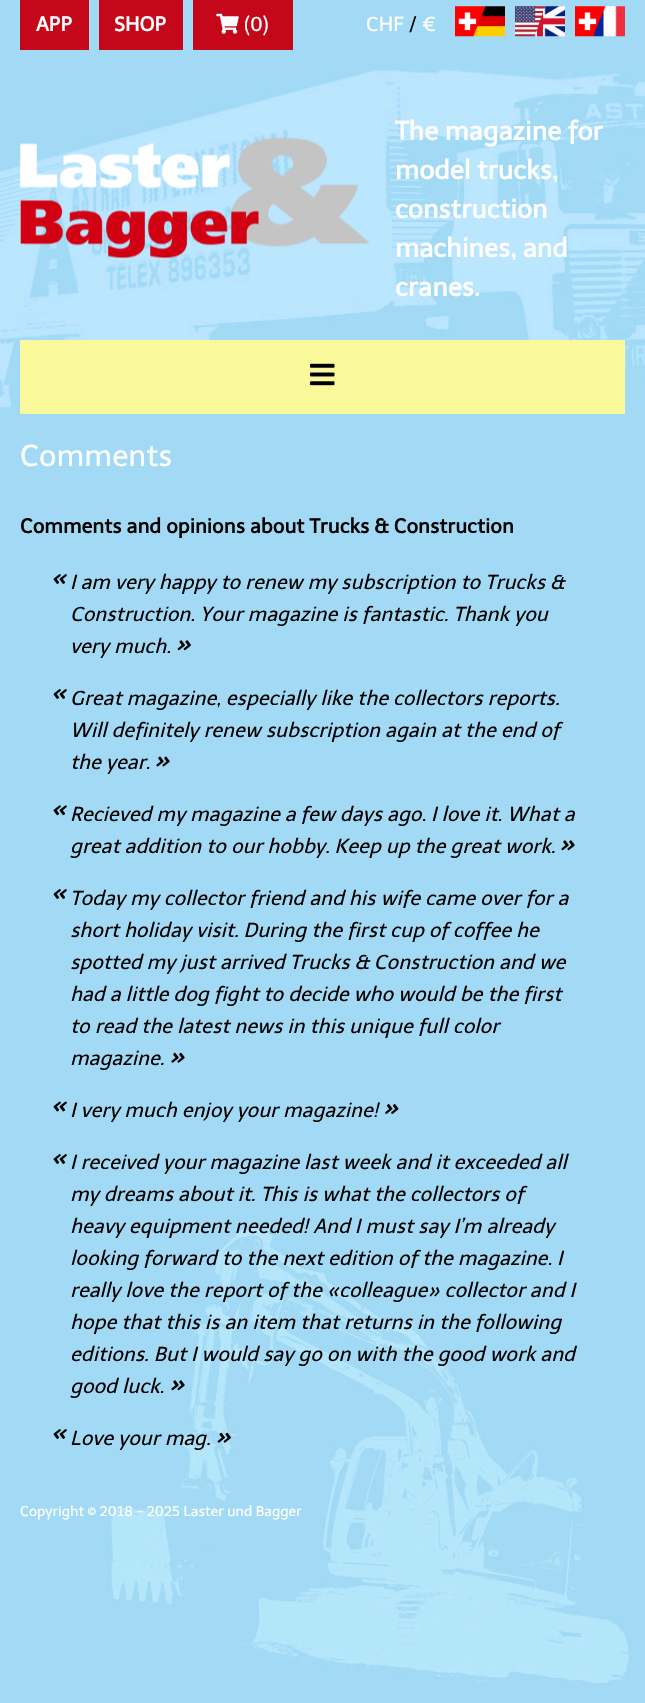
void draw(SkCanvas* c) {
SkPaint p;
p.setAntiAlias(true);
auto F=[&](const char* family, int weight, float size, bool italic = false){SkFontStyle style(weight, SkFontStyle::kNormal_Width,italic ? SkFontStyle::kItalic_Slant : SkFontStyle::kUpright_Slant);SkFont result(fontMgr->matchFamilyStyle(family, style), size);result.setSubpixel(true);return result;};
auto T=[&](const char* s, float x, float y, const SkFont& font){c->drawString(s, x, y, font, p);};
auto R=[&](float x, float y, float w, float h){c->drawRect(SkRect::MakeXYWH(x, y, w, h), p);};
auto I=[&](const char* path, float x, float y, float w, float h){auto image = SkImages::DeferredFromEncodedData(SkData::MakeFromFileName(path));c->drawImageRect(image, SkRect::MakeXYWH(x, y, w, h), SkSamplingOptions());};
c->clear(0xffa2daf5);
I("1.png",0,69,645,1616);
p.setColor(0xffc40719);
R(20,0,69,50);
auto f1 = F("Telex",700,20);
p.setColor(0xffffffff);
T("APP",36,31,f1);
p.setColor(0xffc40719);
R(99,0,84,50);
p.setColor(0xffffffff);
T("SHOP",114,31,f1);
p.setColor(0xffc40719);
R(193,0,100,50);
I("2.png",216,13,23,21);
auto f2 = F("Telex",400,20);
p.setColor(0xffffffff);
T("(0)",244,31,f2);
T("CHF",366,31,f2);
p.setColor(0xff000000);
T("/",409,31,f2);
p.setColor(0xffffffff);
T("€",422,31,f2);
I("3.png",455,6,50,31);
I("4.png",515,6,50,31);
I("5.png",575,6,50,31);
I("6.png",20,137,350,122);
auto f3 = F("Telex",700,26);
T("The magazine for",395,140,f3);
T("model trucks,",395,179,f3);
T("construction",395,218,f3);
T("machines, and",395,257,f3);
T("cranes.",395,296,f3);
p.setColor(0xfffafa9c);
R(20,340,605,74);
I("7.png",310,363,25,23);
auto f4 = F("Telex",400,30);
p.setColor(0xffffffff);
T("Comments",20,466,f4);
p.setColor(0xff000000);
T("Comments and opinions about Trucks & Construction",20,533,f1);
I("8.png",53,574,14,10);
auto f5 = F("Telex",400,20,true);
T("I am very happy to renew my subscription to Trucks &",70,589,f5);
T("Construction. Your magazine is fantastic. Thank you",70,621,f5);
T("very much.",70,653,f5);
I("9.png",177,640,14,11);
I("8.png",53,689,14,10);
T("Great magazine, especially like the collectors reports.",70,705,f5);
T("Will definitely renew subscription again at the end of",70,737,f5);
T("the year.",70,769,f5);
I("10.png",156,756,14,11);
I("11.png",53,805,14,11);
T("Recieved my magazine a few days ago. I love it. What a",70,821,f5);
T("great addition to our hobby. Keep up the great work.",70,853,f5);
I("12.png",561,840,14,11);
I("8.png",53,889,14,10);
T("Today my collector friend and his wife came over for a",70,905,f5);
T("short holiday visit. During the first cup of coffee he",70,937,f5);
T("spotted my just arrived Trucks & Construction and we",70,969,f5);
T("had a little dog fight to decide who would be the first",70,1001,f5);
T("to read the latest news in this unique full color",70,1033,f5);
T("magazine.",70,1065,f5);
I("13.png",171,1052,14,11);
I("14.png",53,1101,14,11);
T("I very much enjoy your magazine!",70,1117,f5);
I("15.png",385,1104,14,10);
I("8.png",53,1154,14,10);
T("I received your magazine last week and it exceeded all",70,1169,f5);
T("my dreams about it. This is what the collectors of",70,1201,f5);
T("heavy equipment needed! And I must say I’m already",70,1233,f5);
T("looking forward to the next edition of the magazine. I",70,1265,f5);
T("really love the report of the «colleague» collector and I",70,1297,f5);
T("hope that this is an item that returns in the following",70,1329,f5);
T("editions. But I would say go on with the good work and",70,1361,f5);
T("good luck.",70,1393,f5);
I("12.png",171,1380,14,11);
I("8.png",53,1429,14,10);
T("Love your mag.",70,1445,f5);
I("16.png",217,1432,14,11);
auto f6 = F("Telex",400,14);
p.setColor(0xffffffff);
T("Copyright © 2018 - 2025 Laster und Bagger",20,1516,f6);
}
